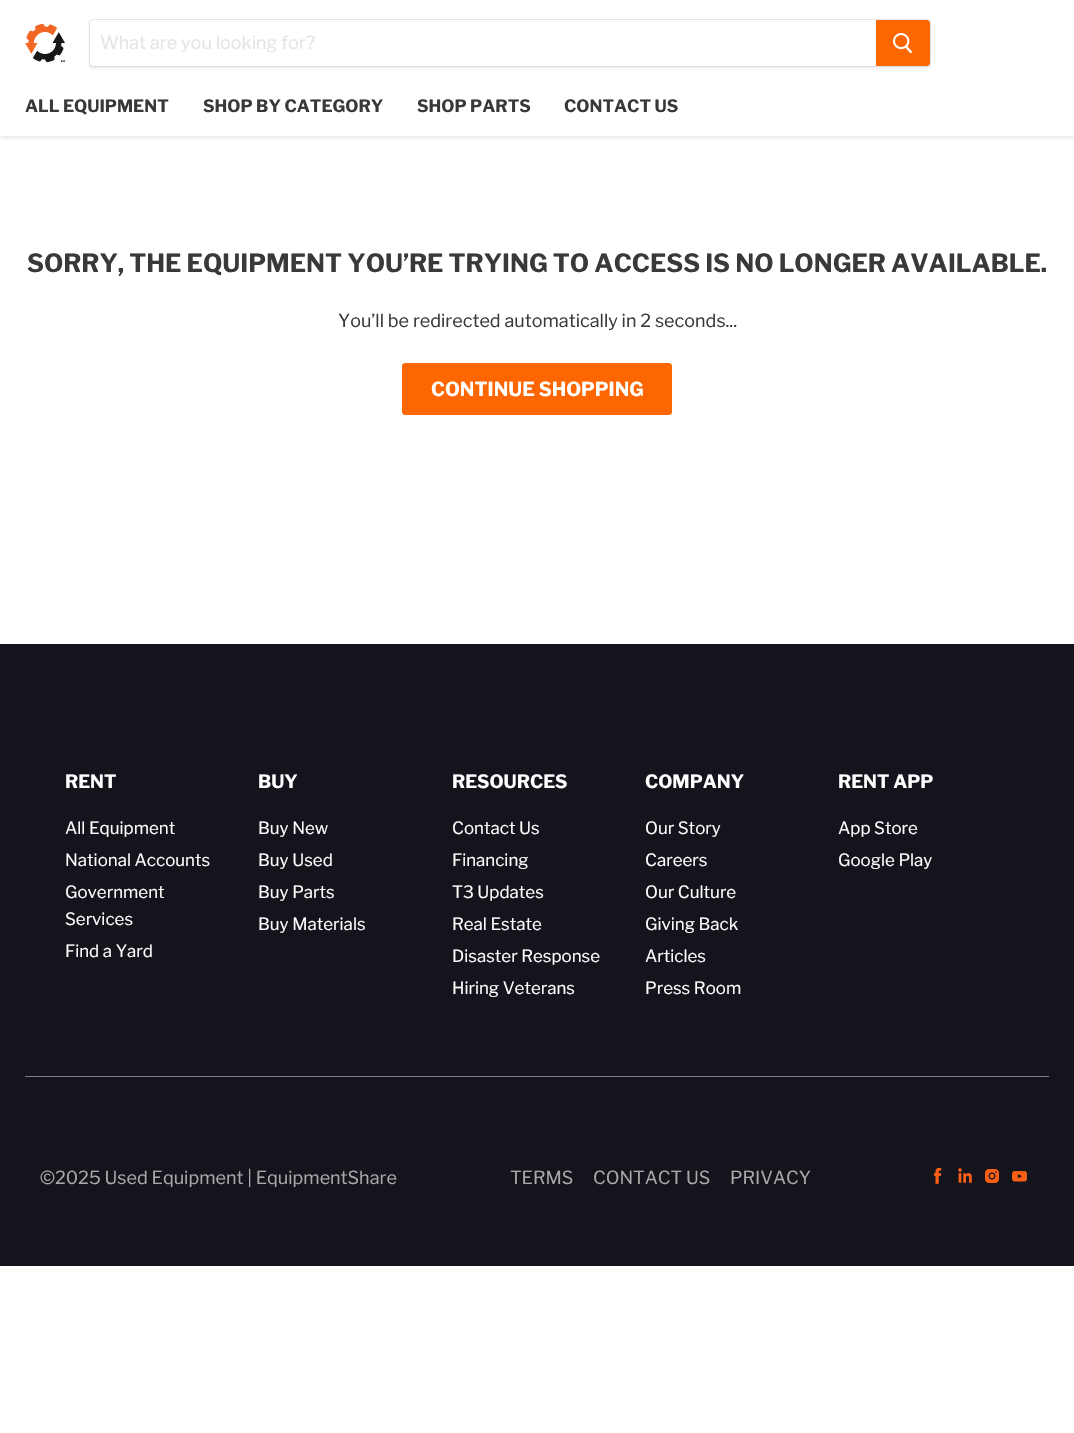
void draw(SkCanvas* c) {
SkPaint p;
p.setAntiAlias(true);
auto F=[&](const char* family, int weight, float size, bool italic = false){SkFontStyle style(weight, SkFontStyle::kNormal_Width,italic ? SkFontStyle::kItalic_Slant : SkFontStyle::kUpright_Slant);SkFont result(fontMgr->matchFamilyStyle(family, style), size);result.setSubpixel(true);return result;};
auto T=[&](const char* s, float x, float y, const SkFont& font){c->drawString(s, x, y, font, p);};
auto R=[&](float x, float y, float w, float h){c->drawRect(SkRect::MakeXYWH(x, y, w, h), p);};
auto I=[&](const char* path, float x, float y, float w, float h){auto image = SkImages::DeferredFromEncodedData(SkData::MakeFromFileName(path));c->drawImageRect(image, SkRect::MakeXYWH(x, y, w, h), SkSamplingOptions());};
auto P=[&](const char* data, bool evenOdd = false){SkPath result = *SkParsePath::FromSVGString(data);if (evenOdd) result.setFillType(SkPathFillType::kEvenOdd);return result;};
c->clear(0xffffffff);
c->save();
c->clipRect(SkRect::MakeXYWH(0,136,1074,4));
p.setColor(0x40808080);
p.setMaskFilter(SkMaskFilter::MakeBlur(kNormal_SkBlurStyle, 2));
c->drawRect(SkRect::MakeXYWH(0,1,1074,136),p);
p.setMaskFilter(nullptr);
c->restore();
I("1.png",25,23,40,40);
p.setColor(0x1c808080);
p.setMaskFilter(SkMaskFilter::MakeBlur(kNormal_SkBlurStyle, 1.5));
c->drawRoundRect(SkRect::MakeXYWH(89,21,842,48),4,4,p);
p.setMaskFilter(nullptr);
p.setStroke(true);
p.setStrokeWidth(1);
p.setColor(0x33808080);
c->drawRoundRect(SkRect::MakeXYWH(89.5,19.5,841,47),3.5,3.5,p);
p.setStroke(false);
p.setColor(0xffffffff);
c->drawPath(P("M93 20h783v46h-783c-1.5 0-3-1.5-3-3v-40c0-1.5 1.5-3 3-3z"),p);
auto f1 = F("Libre Franklin",400,18);
p.setColor(0xffe4e4e4);
T("What are you looking for?",100,49,f1);
p.setColor(0xfffd6600);
c->drawPath(P("M876.5 20.5h50.5c1.5 0 2.5 1 2.5 2.5v40c0 1.5-1 2.5-2.5 2.5h-50.5z"),p);
p.setStroke(true);
c->drawPath(P("M876.5 20.5h50.5c1.5 0 2.5 1 2.5 2.5v40c0 1.5-1 2.5-2.5 2.5h-50.5z"),p);
I("2.png",893,33,20,21);
auto f2 = F("Libre Franklin",700,17);
p.setStroke(false);
p.setColor(0xff373a36);
T("ALL EQUIPMENT",25,112,f2);
T("SHOP BY CATEGORY",203,112,f2);
T("SHOP PARTS",417,112,f2);
T("CONTACT US",564,112,f2);
auto f3 = F("Libre Franklin",700,25);
T("SORRY, THE EQUIPMENT YOU’RE TRYING TO ACCESS IS NO LONGER AVAILABLE.",27,272,f3);
T("You’ll be redirected automatically in 2 seconds...",338,327,f1);
p.setColor(0xfffd6600);
c->drawRoundRect(SkRect::MakeXYWH(402.5,363.5,269,51),2.5,2.5,p);
p.setStroke(true);
c->drawRoundRect(SkRect::MakeXYWH(402.5,363.5,269,51),2.5,2.5,p);
auto f4 = F("Libre Franklin",700,19.25);
p.setStroke(false);
p.setColor(0xffffffff);
T("CONTINUE SHOPPING",431,396,f4);
p.setColor(0xff14141c);
R(0,644,1074,622);
auto f5 = F("Libre Franklin",700,18.25);
p.setColor(0xffffffff);
T("RENT",65,788,f5);
auto f6 = F("Libre Franklin",400,16.9);
T("All Equipment",65,834,f6);
T("National Accounts",65,866,f6);
T("Government",65,898,f6);
T("Services",65,925,f6);
T("Find a Yard",65,957,f6);
T("BUY",258,788,f5);
T("Buy New",258,834,f6);
T("Buy Used",258,866,f6);
T("Buy Parts",258,898,f6);
T("Buy Materials",258,930,f6);
T("RESOURCES",452,788,f5);
T("Contact Us",452,834,f6);
T("Financing",452,866,f6);
T("T3 Updates",452,898,f6);
T("Real Estate",452,930,f6);
T("Disaster Response",452,962,f6);
T("Hiring Veterans",452,994,f6);
T("COMPANY",645,788,f5);
T("Our Story",645,834,f6);
T("Careers",645,866,f6);
T("Our Culture",645,898,f6);
T("Giving Back",645,930,f6);
T("Articles",645,962,f6);
T("Press Room",645,994,f6);
T("RENT APP",838,788,f5);
T("App Store",838,834,f6);
T("Google Play",838,866,f6);
p.setColor(0xff808080);
R(25,1076,1024,1);
p.setColor(0xffa9a9a9);
T("©2025 Used Equipment | EquipmentShare",40,1184,f1);
T("TERMS",510,1184,f1);
T("CONTACT US",593,1184,f1);
T("PRIVACY",730,1184,f1);
I("3.png",934,1168,8,16);
I("4.png",958,1168,14,15);
I("5.png",985,1169,14,14);
I("6.png",1012,1171,15,11);
}
